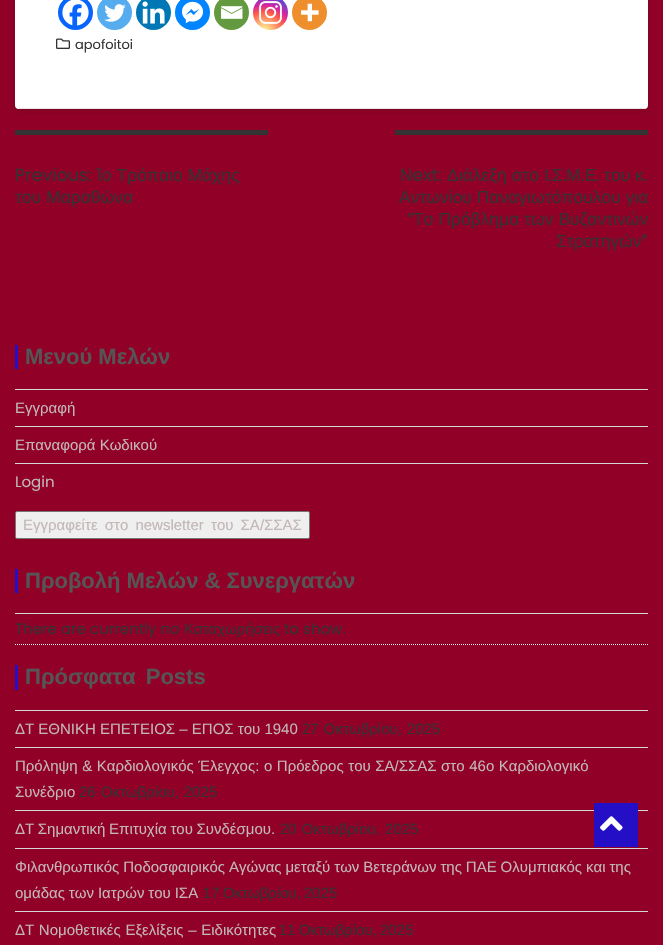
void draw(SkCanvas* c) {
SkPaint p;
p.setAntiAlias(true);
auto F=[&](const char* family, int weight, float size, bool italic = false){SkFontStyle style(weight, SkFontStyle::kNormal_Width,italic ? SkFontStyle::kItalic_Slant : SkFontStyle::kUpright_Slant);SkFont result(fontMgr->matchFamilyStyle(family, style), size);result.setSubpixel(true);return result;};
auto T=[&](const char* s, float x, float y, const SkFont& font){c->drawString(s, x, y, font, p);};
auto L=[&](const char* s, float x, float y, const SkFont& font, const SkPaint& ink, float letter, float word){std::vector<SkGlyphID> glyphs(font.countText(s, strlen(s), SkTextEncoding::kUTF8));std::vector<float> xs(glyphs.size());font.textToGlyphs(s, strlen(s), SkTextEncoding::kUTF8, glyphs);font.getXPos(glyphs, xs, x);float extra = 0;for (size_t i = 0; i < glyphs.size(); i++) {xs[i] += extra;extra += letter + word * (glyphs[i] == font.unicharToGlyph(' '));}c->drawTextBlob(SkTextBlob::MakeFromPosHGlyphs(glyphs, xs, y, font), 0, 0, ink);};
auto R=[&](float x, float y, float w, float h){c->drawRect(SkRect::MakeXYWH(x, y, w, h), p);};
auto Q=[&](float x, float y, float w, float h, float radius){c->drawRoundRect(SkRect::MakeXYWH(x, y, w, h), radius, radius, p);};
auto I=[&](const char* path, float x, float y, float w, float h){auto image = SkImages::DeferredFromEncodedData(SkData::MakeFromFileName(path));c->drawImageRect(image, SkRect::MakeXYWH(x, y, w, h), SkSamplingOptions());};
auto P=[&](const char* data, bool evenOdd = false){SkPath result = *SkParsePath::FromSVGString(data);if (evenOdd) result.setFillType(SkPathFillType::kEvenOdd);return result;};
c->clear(0xff910127);
p.setColor(0x21000000);
p.setMaskFilter(SkMaskFilter::MakeBlur(kNormal_SkBlurStyle, 2.5));
c->drawRoundRect(SkRect::MakeXYWH(15,-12,633,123),4,4,p);
p.setMaskFilter(nullptr);
p.setColor(0xffffffff);
Q(15,-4,633,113,4);
p.setColor(0xffe5e5e5);
R(17,108,629,1);
p.setColor(0xff0765fe);
c->drawCircle(75.5,12.5,17.5,p);
I("1.png",62,0,27,26);
p.setColor(0xff55acee);
c->drawCircle(114.5,12.5,17.5,p);
I("2.png",104,4,22,18);
p.setColor(0xff0077b5);
c->drawCircle(153.5,12.5,17.5,p);
I("3.png",142,1,23,23);
p.setColor(0xff0084ff);
c->drawCircle(192.5,12.5,17.5,p);
I("4.png",181,1,23,23);
p.setColor(0xff649a3f);
c->drawCircle(231.5,12.5,17.5,p);
I("5.png",221,6,22,13);
{
const SkColor colors[] = {0xfffdf497,0xfffdf497,0xfffd5949,0xffd6249f,0xff285aeb};
const float stops[] = {0,.05,.45,.6,.9};
p.setShader(SkGradientShader::MakeRadial({264,32}, 45, colors, stops, 5, SkTileMode::kClamp));
p.setAlpha(255);
}
c->drawCircle(270.5,12.5,17.5,p);
I("6.png",259,1,23,23);
p.setShader(nullptr);
p.setColor(0xffee8e2d);
c->drawCircle(309.5,12.5,17.5,p);
I("7.png",301,3,18,19);
I("8.png",56,38,14,11);
auto f1 = F("Poppins",400,13);
p.setColor(0xff333333);
T("apofoitoi",75,49,f1);
R(15,130,253,5);
auto f2 = F("Poppins",400,17.5);
T("Previous: 1",15,181,f2);
auto f3 = F("Liberation Sans",400,17.5);
T("ο Τρόπαιο Μάχης",102,181,f3);
T("του Μαραθώνα",15,203,f3);
R(395,130,253,5);
T("Next:",400,181,f2);
T("Διάλεξη στο Ι",447,181,f3);
T(".",548,181,f2);
T("Σ",552,181,f3);
T(".",563,181,f2);
T("Μ",566,181,f3);
T(".",581,181,f2);
T("Ε",585,181,f3);
T(".",596,181,f2);
T("του κ",604,181,f3);
T(".",644,181,f2);
T("Αντωνίου Παναγιωτόπουλου για",399,203,f3);
T("“",407,225,f2);
T("Το Πρόβλημα των Βυζαντινών",413,225,f3);
T("Στρατηγών",556,247,f3);
T("”",641,247,f2);
p.setColor(0xff250fc6);
R(15,345,3,24);
auto f4 = F("Liberation Sans",700,22);
p.setColor(0xff555555);
T("Μενού Μελών",25,364,f4);
p.setColor(0xffd7d7d7);
R(15,389,633,1);
auto f5 = F("Liberation Sans",400,15);
p.setColor(0xffc2b6b6);
T("Εγγραφή",15,413,f5);
p.setColor(0xffd7d7d7);
R(15,426,633,1);
p.setColor(0xffc2b6b6);
T("Επαναφορά Κωδικού",15,450,f5);
p.setColor(0xffd7d7d7);
R(15,463,633,1);
auto f6 = F("Poppins",400,15);
p.setColor(0xffc2b6b6);
T("Login",15,487,f6);
p.setColor(0xffefefef);
c->drawRoundRect(SkRect::MakeXYWH(15.5,511.5,294,27),1.5,1.5,p);
p.setStroke(true);
p.setStrokeWidth(1);
p.setColor(0xff767676);
c->drawRoundRect(SkRect::MakeXYWH(15.5,511.5,294,27),1.5,1.5,p);
p.setStroke(false);
p.setColor(0xffc2b6b6);
L("Εγγραφείτε στο newsletter του ΣA/ΣΣΑΣ",23,530,f5,p,0,3);
p.setColor(0xff250fc6);
R(15,569,3,24);
p.setColor(0xff555555);
T("Προβολή Μελών & Συνεργατών",25,588,f4);
p.setColor(0xffd7d7d7);
R(15,613,633,1);
p.setStroke(true);
p.setColor(0xffeeeeee);
p.setPathEffect(SkDashPathEffect::Make({{1,1}}, 0));
c->drawPath(P("M15 644.5h633"),p);
p.setPathEffect(nullptr);
p.setStroke(false);
p.setColor(0xff333333);
T("There are currently no",15,634,f6);
T("Καταχωρήσεις",184,634,f5);
T("to show.",284,634,f6);
p.setColor(0xff250fc6);
R(15,665,3,25);
p.setColor(0xff555555);
L("Πρόσφατα Posts",25,684,f4,p,0,4);
p.setColor(0xffd7d7d7);
R(15,710,633,1);
p.setColor(0xffc2b6b6);
T("ΔΤ ΕΘΝΙΚΗ ΕΠΕΤΕΙΟΣ – ΕΠΟΣ του 1940",15,734,f5);
p.setColor(0xff333333);
L("27 Οκτωβρίου, 2025",302,734,f5,p,0,1);
p.setColor(0xffd7d7d7);
R(15,747,633,1);
p.setColor(0xffc2b6b6);
L("Πρόληψη & Καρδιολογικός Έλεγχος: ο Πρόεδρος του ΣΑ/ΣΣΑΣ στο 46ο Καρδιολογικό",15,771,f5,p,0,.4);
T("Συνέδριο",15,797,f5);
p.setColor(0xff333333);
L("26 Οκτωβρίου, 2025",79,797,f5,p,0,1);
p.setColor(0xffd7d7d7);
R(15,810,633,1);
p.setColor(0xffc2b6b6);
L("ΔΤ Σημαντική Επιτυχία του Συνδέσμου.",15,834,f5,p,0,-.5);
p.setColor(0xff333333);
L("20 Οκτωβρίου, 2025",280,834,f5,p,0,1);
p.setColor(0xffd7d7d7);
R(15,848,633,1);
p.setColor(0xffc2b6b6);
L("Φιλανθρωπικός Ποδοσφαιρικός Αγώνας μεταξύ των Βετεράνων της ΠΑΕ Ολυμπιακός και της",15,872,f5,p,0,-.25);
L("ομάδας των Ιατρών του ΙΣΑ",15,898,f5,p,0,-.25);
p.setColor(0xff333333);
L("17 Οκτωβρίου, 2025",203,898,f5,p,0,-1);
p.setColor(0xffd7d7d7);
R(15,911,633,1);
p.setColor(0xffc2b6b6);
L("ΔΤ Νομοθετικές Εξελίξεις – Ειδικότητες",15,935,f5,p,0,.5);
p.setColor(0xff333333);
L("11 Οκτωβρίου, 2025",279,935,f5,p,0,-1);
p.setColor(0xff250fc6);
R(594,803,44,44);
I("9.png",600,816,23,15);
}
